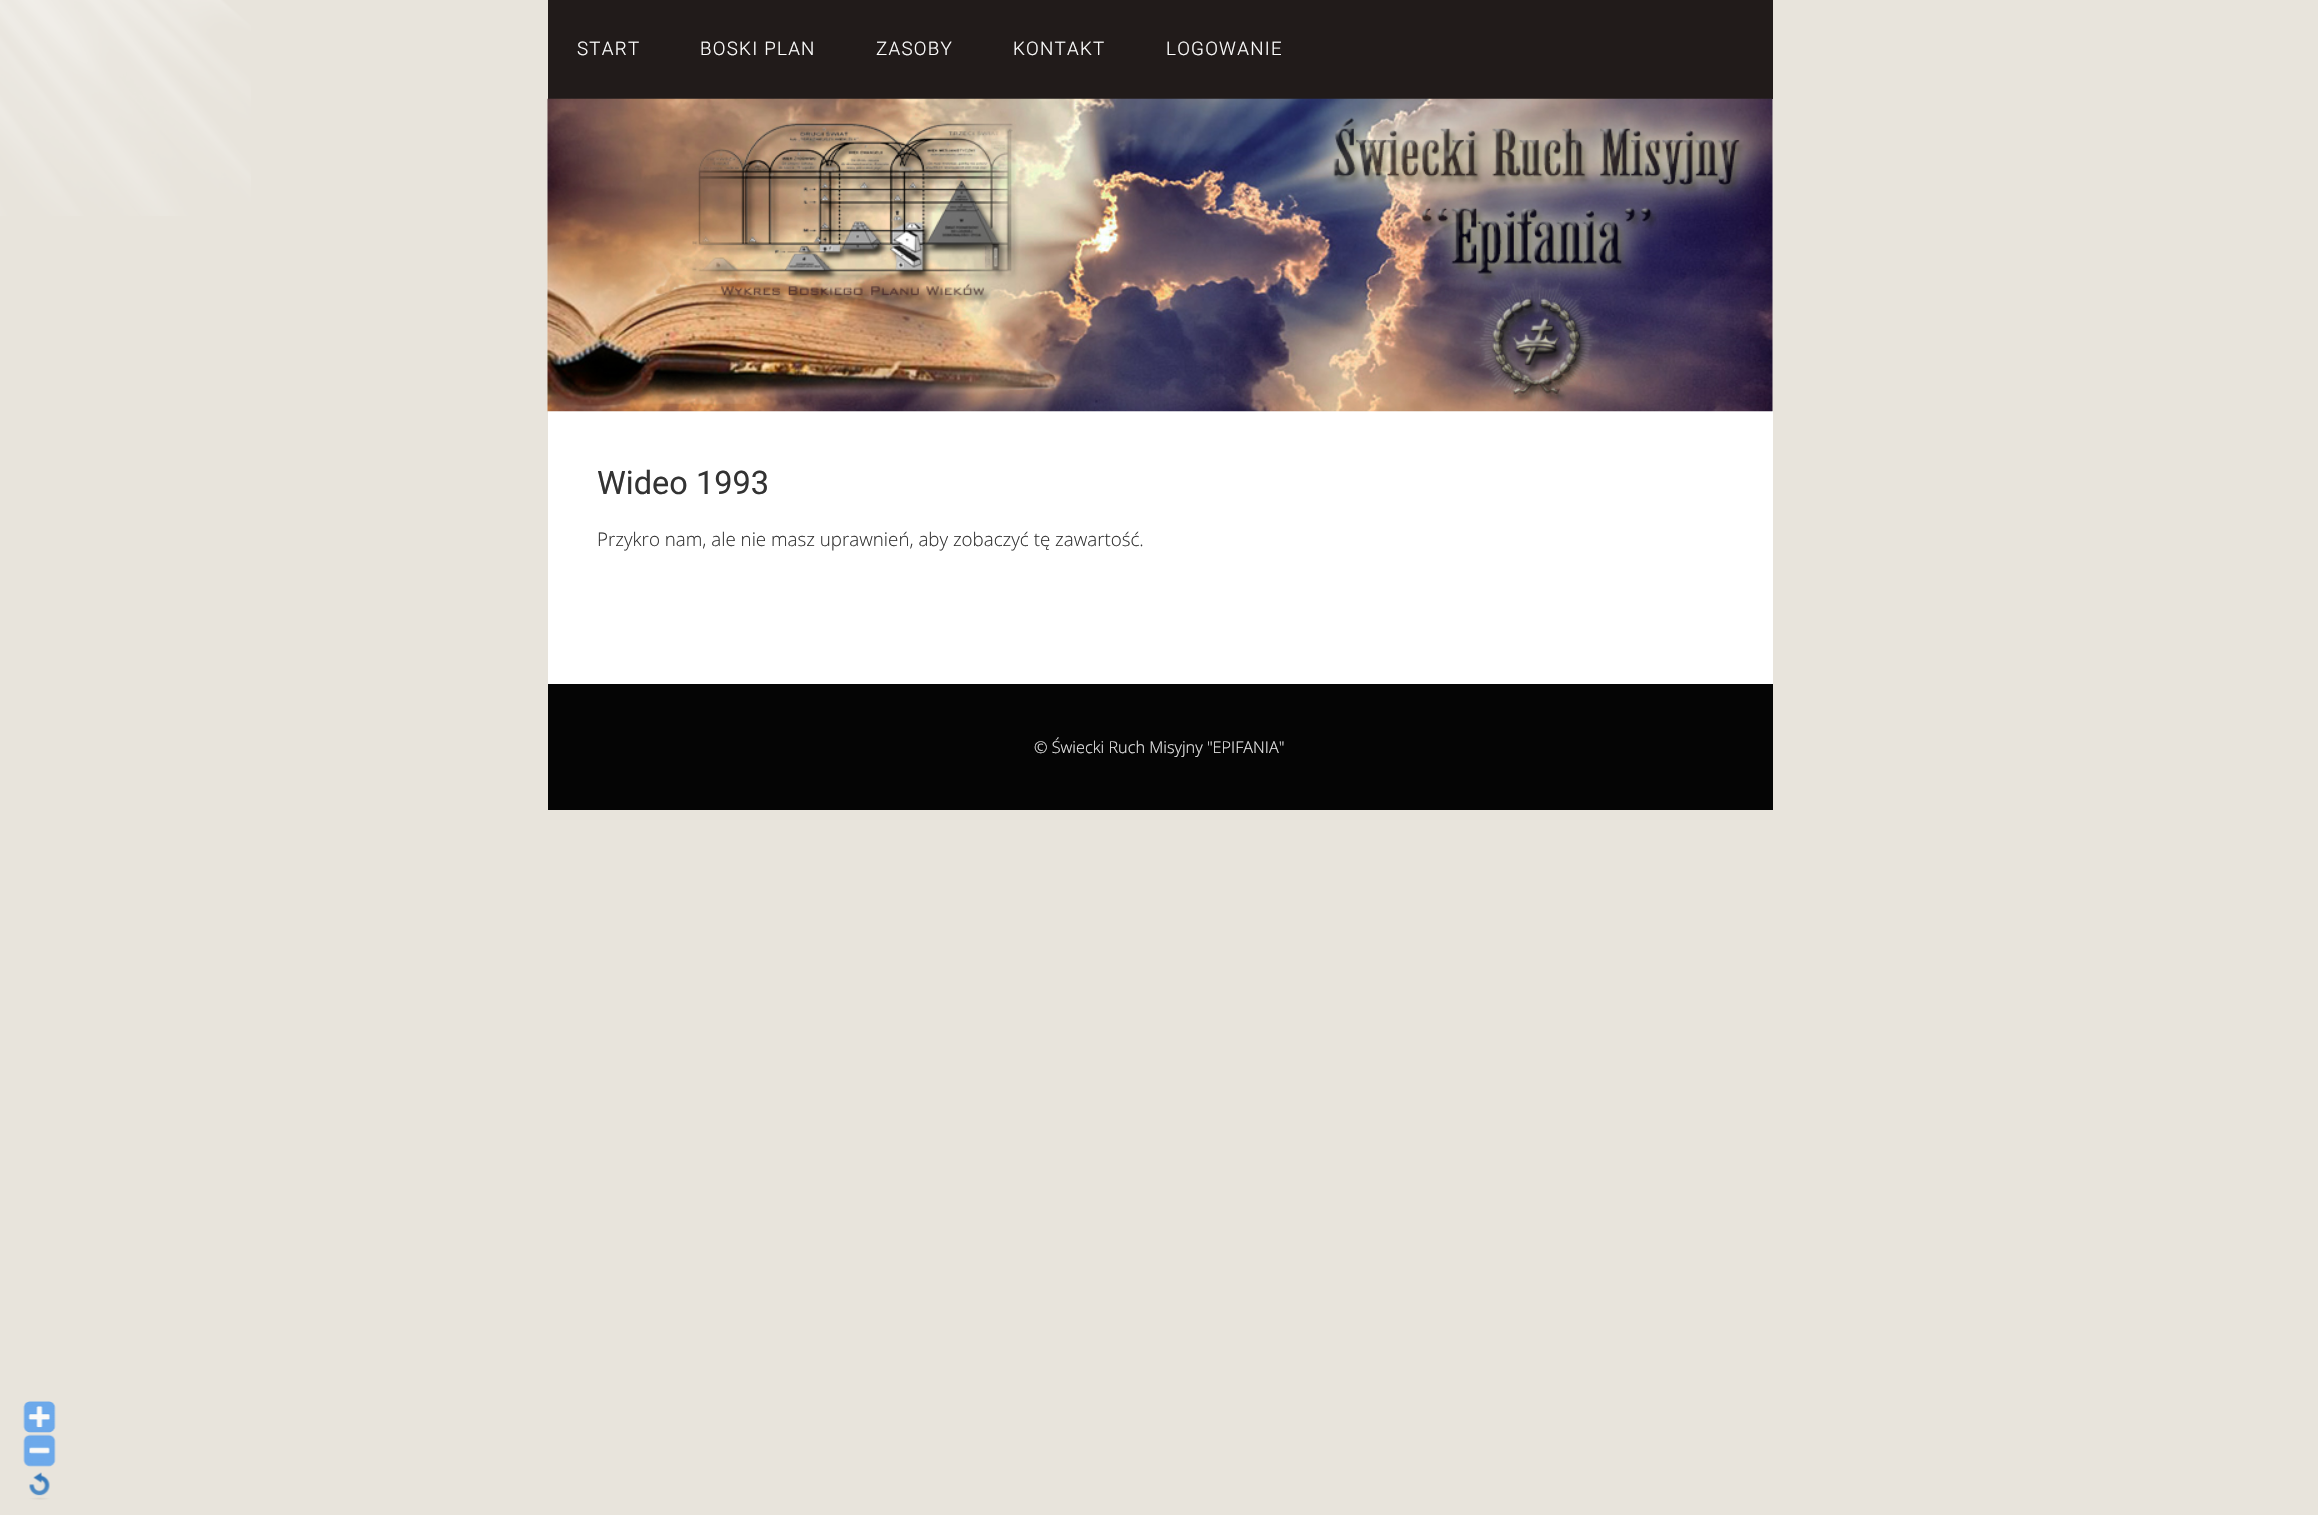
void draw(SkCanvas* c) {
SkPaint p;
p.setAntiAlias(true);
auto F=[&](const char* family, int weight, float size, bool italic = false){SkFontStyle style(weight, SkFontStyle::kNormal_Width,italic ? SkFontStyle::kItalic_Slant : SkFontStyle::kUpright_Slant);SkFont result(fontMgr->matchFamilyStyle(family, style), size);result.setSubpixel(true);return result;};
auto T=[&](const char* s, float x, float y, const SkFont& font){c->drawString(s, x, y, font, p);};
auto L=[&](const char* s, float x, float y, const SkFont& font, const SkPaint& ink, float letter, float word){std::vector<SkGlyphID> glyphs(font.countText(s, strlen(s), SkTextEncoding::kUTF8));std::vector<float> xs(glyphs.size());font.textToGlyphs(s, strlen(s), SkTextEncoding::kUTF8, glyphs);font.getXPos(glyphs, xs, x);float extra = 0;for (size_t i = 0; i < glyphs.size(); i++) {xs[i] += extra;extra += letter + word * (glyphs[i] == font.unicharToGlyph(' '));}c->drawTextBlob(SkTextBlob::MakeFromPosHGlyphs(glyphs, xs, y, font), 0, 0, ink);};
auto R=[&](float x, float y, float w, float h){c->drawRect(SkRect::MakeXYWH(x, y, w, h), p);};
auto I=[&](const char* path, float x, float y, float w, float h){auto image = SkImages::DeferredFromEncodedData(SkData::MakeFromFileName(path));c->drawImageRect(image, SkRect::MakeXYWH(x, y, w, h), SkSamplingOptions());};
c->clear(0xffe8e4dc);
I("1.png",0,0,251,216);
p.setColor(0xff211b1a);
R(548,0,1225,99);
auto f1 = F("Roboto",300,18.75);
p.setColor(0xffffffff);
L("START",577,55,f1,p,1.25,0);
L("BOSKI PLAN",700,55,f1,p,1.25,0);
L("ZASOBY",876,55,f1,p,1.25,0);
L("KONTAKT",1013,55,f1,p,1.25,0);
L("LOGOWANIE",1166,55,f1,p,1.25,0);
R(548,411,1225,273);
I("2.png",547,98,1226,314);
auto f2 = F("Roboto",400,32.5);
p.setColor(0xff333333);
T("Wideo 1993",597,494,f2);
auto f3 = F("Open Sans",300,18.75);
T("Przykro nam, ale nie masz uprawnień, aby zobaczyć tę zawartość.",597,546,f3);
p.setColor(0xff050505);
R(548,684,1225,126);
auto f4 = F("Open Sans",300,16.25);
p.setColor(0xffeaeaea);
T("© Świecki Ruch Misyjny \"EPIFANIA\"",1034,753,f4);
I("3.png",23,1401,33,32);
I("4.png",23,1434,33,33);
I("5.png",29,1472,21,28);
}
